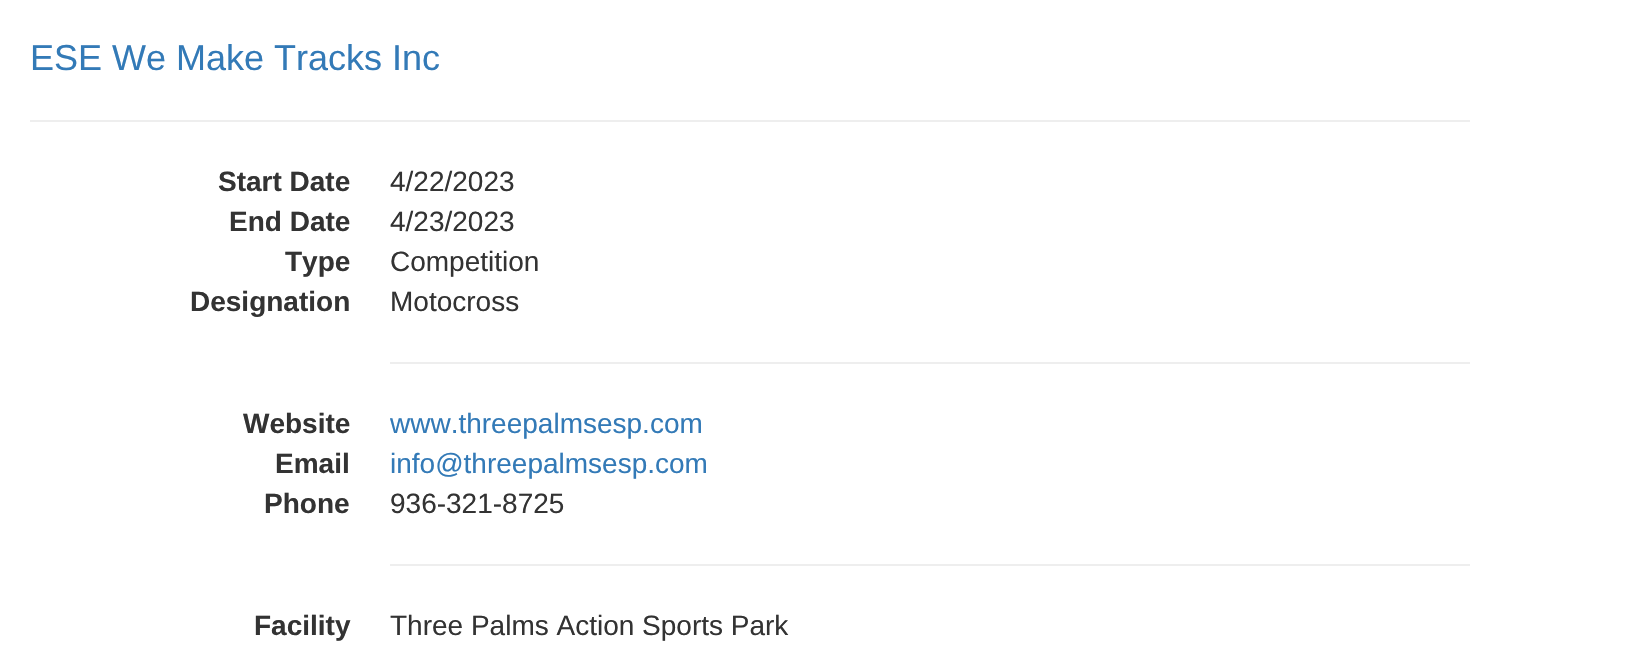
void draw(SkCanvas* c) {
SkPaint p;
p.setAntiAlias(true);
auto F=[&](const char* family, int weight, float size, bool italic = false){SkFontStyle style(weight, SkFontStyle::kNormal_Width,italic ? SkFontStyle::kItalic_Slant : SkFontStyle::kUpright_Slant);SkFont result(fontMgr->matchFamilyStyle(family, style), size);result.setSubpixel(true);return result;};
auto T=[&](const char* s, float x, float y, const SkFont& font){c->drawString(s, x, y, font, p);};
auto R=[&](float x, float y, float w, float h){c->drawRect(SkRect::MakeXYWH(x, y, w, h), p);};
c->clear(0xffffffff);
auto f1 = F("Liberation Sans",400,36);
p.setColor(0xff337ab7);
T("ESE We Make Tracks Inc",30,70,f1);
p.setColor(0xffeeeeee);
R(30,120,1440,2);
auto f2 = F("Liberation Sans",700,28);
p.setColor(0xff333333);
T("Start Date",218,191,f2);
auto f3 = F("Liberation Sans",400,28);
T("4/22/2023",390,191,f3);
T("End Date",229,231,f2);
T("4/23/2023",390,231,f3);
T("Type",285,271,f2);
T("Competition",390,271,f3);
T("Designation",190,311,f2);
T("Motocross",390,311,f3);
p.setColor(0xffeeeeee);
R(390,362,1080,2);
p.setColor(0xff333333);
T("Website",243,433,f2);
p.setColor(0xff337ab7);
T("www.threepalmsesp.com",390,433,f3);
p.setColor(0xff333333);
T("Email",275,473,f2);
p.setColor(0xff337ab7);
T("info@threepalmsesp.com",390,473,f3);
p.setColor(0xff333333);
T("Phone",264,513,f2);
T("936-321-8725",390,513,f3);
p.setColor(0xffeeeeee);
R(390,564,1080,2);
p.setColor(0xff333333);
T("Facility",254,635,f2);
T("Three Palms Action Sports Park",390,635,f3);
}
